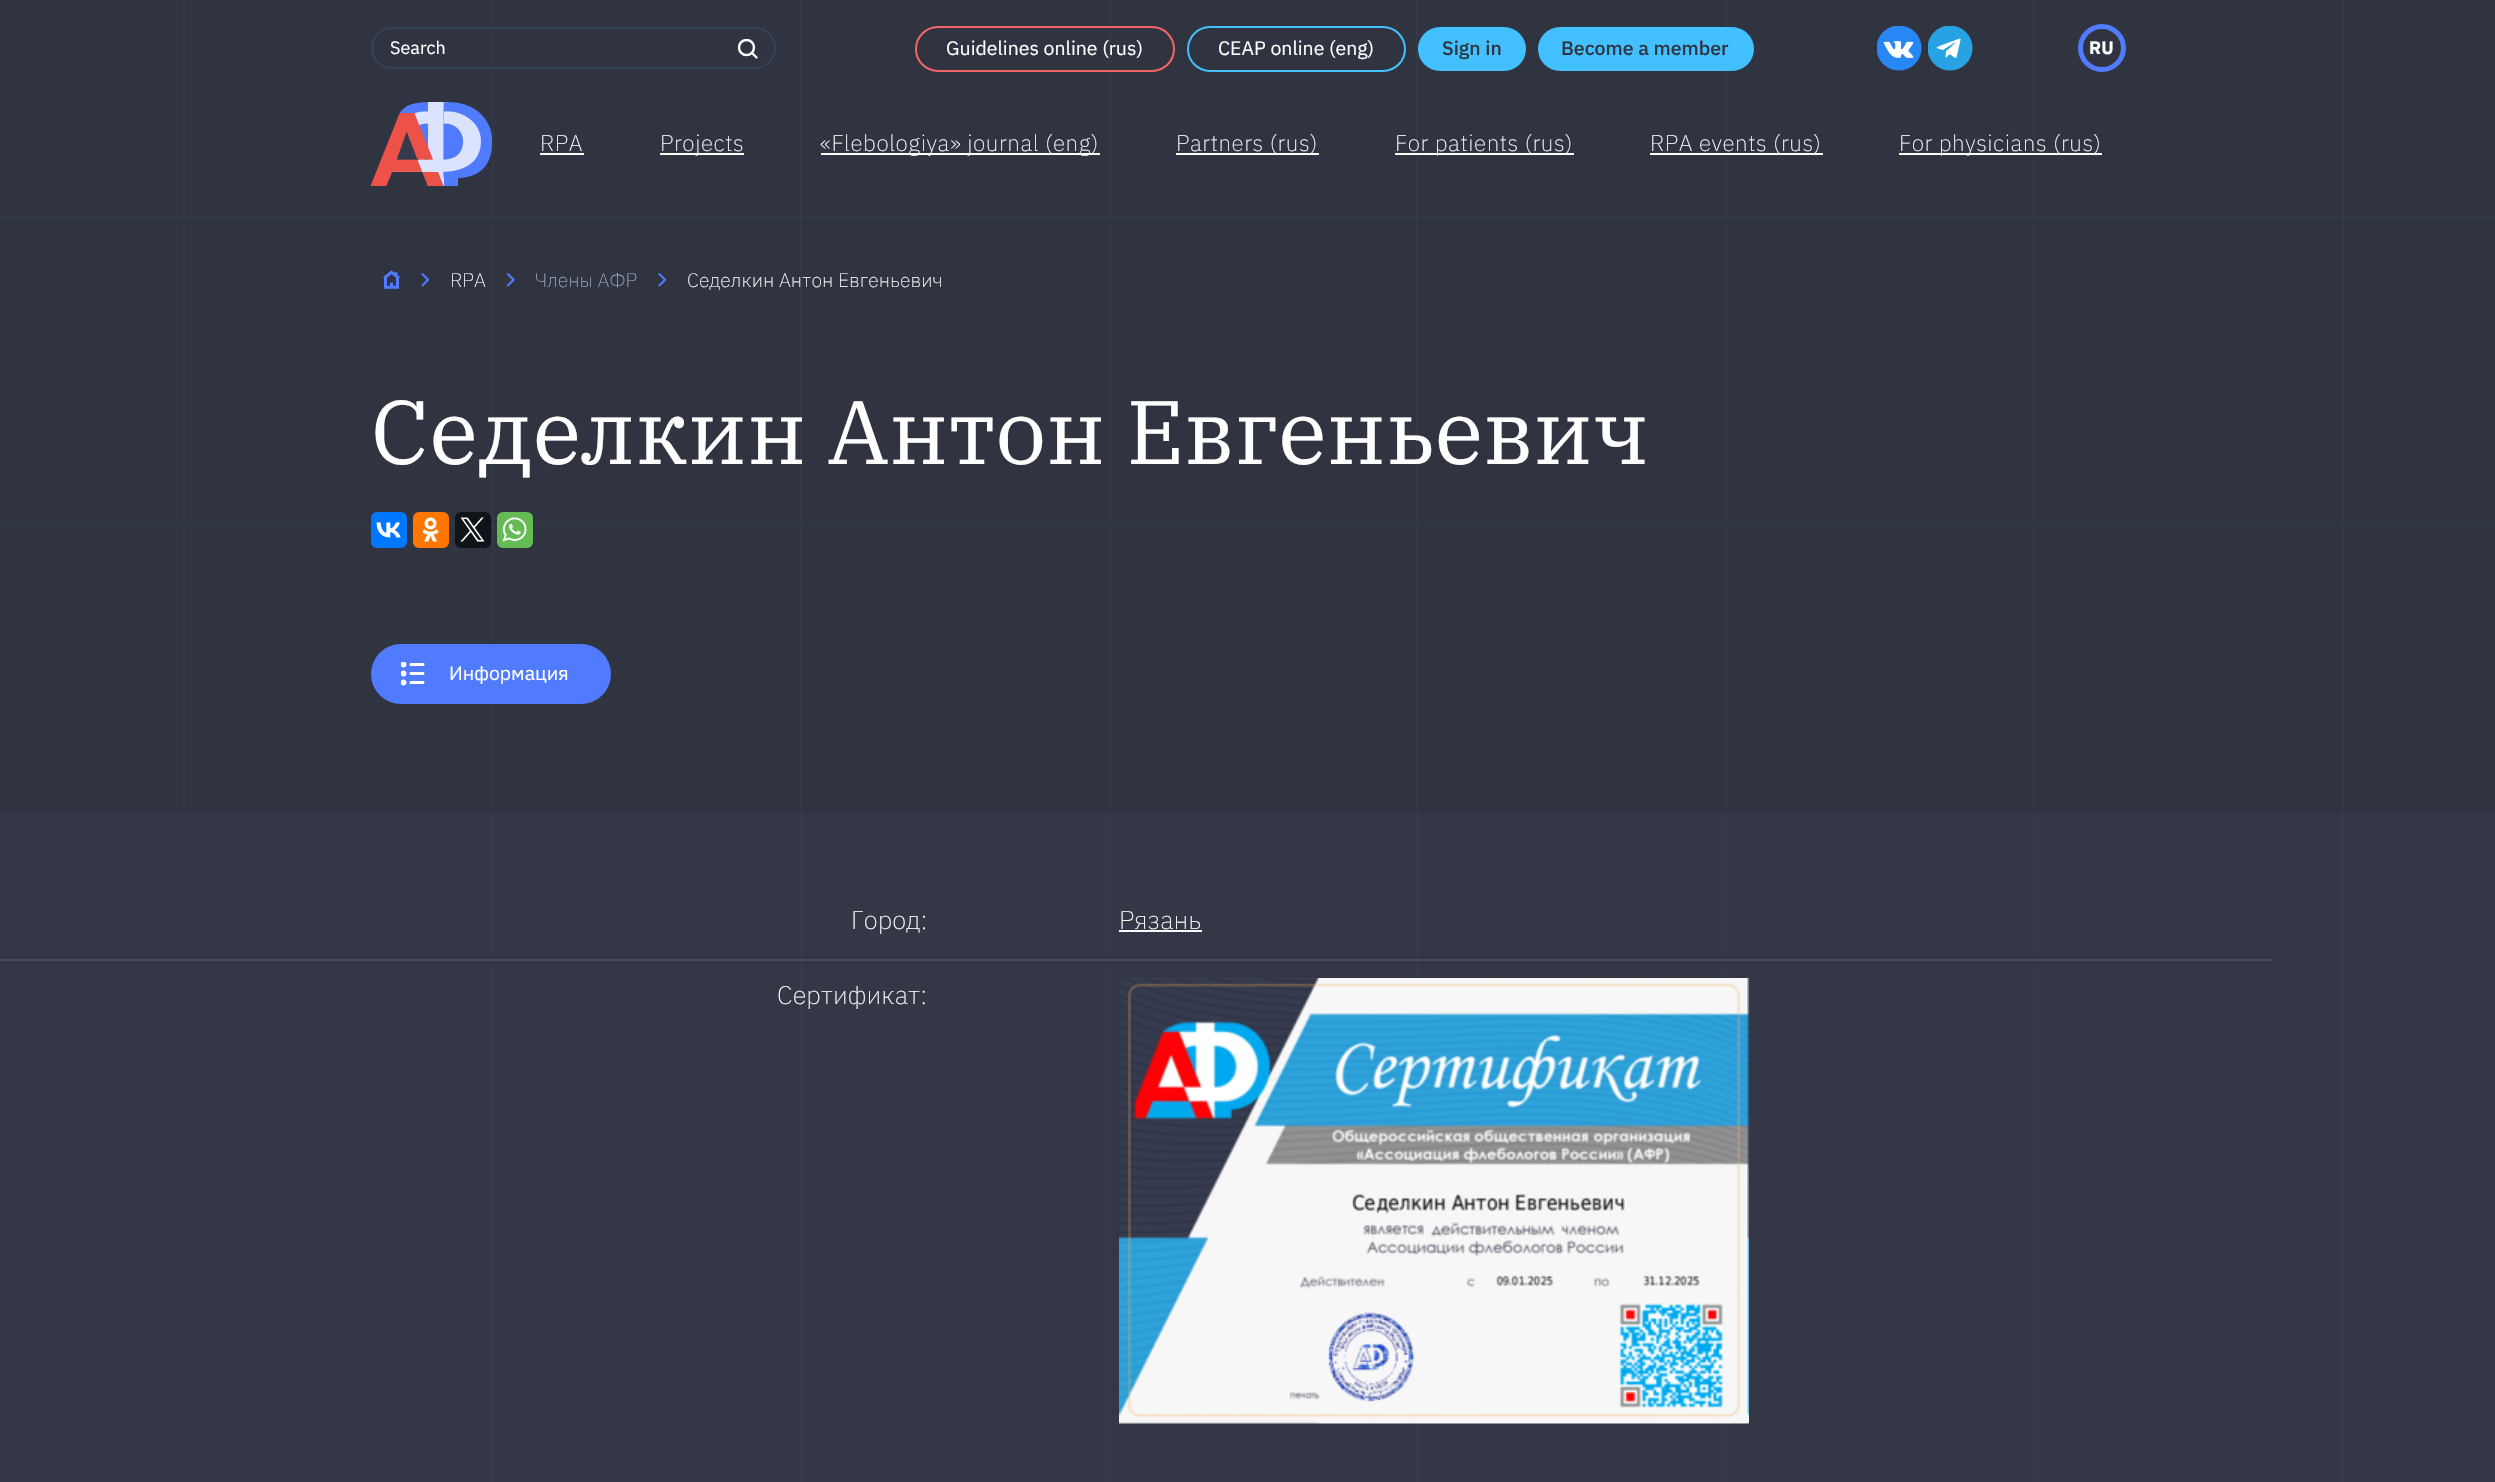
void draw(SkCanvas* c) {
SkPaint p;
p.setAntiAlias(true);
auto F=[&](const char* family, int weight, float size, bool italic = false){SkFontStyle style(weight, SkFontStyle::kNormal_Width,italic ? SkFontStyle::kItalic_Slant : SkFontStyle::kUpright_Slant);SkFont result(fontMgr->matchFamilyStyle(family, style), size);result.setSubpixel(true);return result;};
auto T=[&](const char* s, float x, float y, const SkFont& font){c->drawString(s, x, y, font, p);};
auto L=[&](const char* s, float x, float y, const SkFont& font, const SkPaint& ink, float letter, float word){std::vector<SkGlyphID> glyphs(font.countText(s, strlen(s), SkTextEncoding::kUTF8));std::vector<float> xs(glyphs.size());font.textToGlyphs(s, strlen(s), SkTextEncoding::kUTF8, glyphs);font.getXPos(glyphs, xs, x);float extra = 0;for (size_t i = 0; i < glyphs.size(); i++) {xs[i] += extra;extra += letter + word * (glyphs[i] == font.unicharToGlyph(' '));}c->drawTextBlob(SkTextBlob::MakeFromPosHGlyphs(glyphs, xs, y, font), 0, 0, ink);};
auto R=[&](float x, float y, float w, float h){c->drawRect(SkRect::MakeXYWH(x, y, w, h), p);};
auto Q=[&](float x, float y, float w, float h, float radius){c->drawRoundRect(SkRect::MakeXYWH(x, y, w, h), radius, radius, p);};
auto I=[&](const char* path, float x, float y, float w, float h){auto image = SkImages::DeferredFromEncodedData(SkData::MakeFromFileName(path));c->drawImageRect(image, SkRect::MakeXYWH(x, y, w, h), SkSamplingOptions());};
auto P=[&](const char* data, bool evenOdd = false){SkPath result = *SkParsePath::FromSVGString(data);if (evenOdd) result.setFillType(SkPathFillType::kEvenOdd);return result;};
c->clear(0xff303441);
p.setColor(0xff313947);
R(0,525,2495,2);
R(0,216,2495,2);
R(183,0,2,812);
p.setColor(0xff313c4c);
R(183,525,2,2);
R(183,216,2,2);
p.setColor(0xff313947);
R(492,0,2,812);
p.setColor(0xff313c4c);
R(492,525,2,2);
R(492,216,2,2);
p.setColor(0xff313947);
R(800,0,2,812);
p.setColor(0xff313c4c);
R(800,525,2,2);
R(800,216,2,2);
p.setColor(0xff313947);
R(1109,0,2,812);
p.setColor(0xff313c4c);
R(1109,525,2,2);
R(1109,216,2,2);
p.setColor(0xff313947);
R(1416,0,2,812);
p.setColor(0xff313c4c);
R(1416,525,2,2);
R(1416,216,2,2);
p.setColor(0xff313947);
R(1725,0,2,812);
p.setColor(0xff313c4c);
R(1725,525,2,2);
R(1725,216,2,2);
p.setColor(0xff313947);
R(2033,0,2,812);
p.setColor(0xff313c4c);
R(2033,525,2,2);
R(2033,216,2,2);
p.setColor(0xff313947);
R(2342,0,2,812);
p.setColor(0xff313c4c);
R(2342,525,2,2);
R(2342,216,2,2);
p.setStroke(true);
p.setStrokeWidth(2);
p.setColor(0xff324456);
c->drawRoundRect(SkRect::MakeXYWH(372,28,403,40),20,20,p);
auto f1 = F("IBM Plex Sans",400,18);
p.setStroke(false);
p.setColor(0xffffffff);
T("Search",390,54,f1);
p.setStroke(true);
p.setStrokeWidth(2.4);
p.setStrokeCap(SkPaint::kRound_Cap);
c->drawPath(P("M752 53l4.5 4.5"),p);
c->save();
c->clipRect(SkRect::MakeXYWH(738,39,20,20));
p.setStrokeCap(SkPaint::kButt_Cap);
c->drawCircle(746.5,47.5,7.5,p);
c->restore();
p.setStrokeWidth(2);
p.setColor(0xfff56565);
c->drawRoundRect(SkRect::MakeXYWH(916,27,258,44),22,22,p);
auto f2 = F("IBM Plex Sans",400,19.5);
p.setStroke(false);
p.setColor(0xffffffff);
T("Guidelines online (rus)",946,55,f2);
p.setStroke(true);
p.setColor(0xff43c0ff);
c->drawRoundRect(SkRect::MakeXYWH(1188,27,217,44),22,22,p);
p.setStroke(false);
p.setColor(0xffffffff);
T("CEAP online (eng)",1218,55,f2);
p.setColor(0xff43c0ff);
Q(1418,27,108,44,22);
auto f3 = F("IBM Plex Sans",500,19.5);
p.setColor(0xff303441);
T("Sign in",1442,55,f3);
p.setColor(0xff43c0ff);
Q(1538,27,216,44,22);
p.setColor(0xff303441);
T("Become a member",1561,55,f3);
I("1.png",1877,26,45,45);
I("2.png",1928,26,45,45);
p.setStroke(true);
p.setStrokeWidth(5);
p.setColor(0xff507bff);
c->drawCircle(2102,48,21.5,p);
auto f4 = F("IBM Plex Sans",700,18);
p.setStroke(false);
p.setColor(0xffffffff);
T("RU",2089,54,f4);
I("3.png",371,102,121,84);
auto f5 = F("IBM Plex Sans",200,22.5);
L("RPA",540,151,f5,p,.55,0);
R(540,153,44,2);
R(660,153,84,2);
L("Projects",660,151,f5,p,.55,0);
R(821,153,279,2);
L("«Flebologiya» journal (eng)",820,151,f5,p,.55,0);
R(1176,153,143,2);
L("Partners (rus)",1176,151,f5,p,.55,0);
R(1395,153,179,2);
L("For patients (rus)",1395,151,f5,p,.55,0);
R(1650,153,173,2);
L("RPA events (rus)",1650,151,f5,p,.55,0);
R(1899,153,203,2);
L("For physicians (rus)",1899,151,f5,p,.55,0);
I("4.png",383,270,17,19);
I("5.png",421,273,9,14);
auto f6 = F("IBM Plex Sans",200,19.5);
T("RPA",450,287,f6);
I("6.png",506,273,9,14);
p.setColor(0xffa0aec0);
T("Члены АФР",535,287,f6);
I("5.png",658,273,9,14);
p.setColor(0xffffffff);
T("Седелкин Антон Евгеньевич",687,287,f6);
auto f7 = F("IBM Plex Serif",400,90);
T("Седелкин Антон Евгеньевич",371,464,f7);
p.setColor(0xff0077ff);
Q(371,512,36,36,6);
I("7.png",376,522,25,16);
p.setColor(0xffff7700);
Q(413,512,36,36,6);
I("8.png",422,517,17,25);
p.setColor(0xff0f1419);
Q(455,512,36,36,6);
I("9.png",460,517,25,25);
p.setColor(0xff65bc54);
Q(497,512,36,36,6);
I("10.png",502,517,25,25);
p.setColor(0xff507bff);
Q(371,644,240,60,30);
I("11.png",401,662,24,24);
p.setColor(0xffffffff);
T("Информация",449,680,f2);
p.setColor(0xff343846);
R(0,812,2495,670);
p.setColor(0xff484c59);
R(0,959,2273,2);
p.setColor(0xff333c4b);
R(183,812,2,670);
p.setColor(0xff47505d);
R(183,959,2,2);
p.setColor(0xff333c4b);
R(492,812,2,670);
p.setColor(0xff47505d);
R(492,959,2,2);
p.setColor(0xff333c4b);
R(800,812,2,670);
p.setColor(0xff47505d);
R(800,959,2,2);
p.setColor(0xff333c4b);
R(1109,812,2,670);
p.setColor(0xff47505d);
R(1109,959,2,2);
p.setColor(0xff333c4b);
R(1416,812,2,670);
p.setColor(0xff47505d);
R(1416,959,2,2);
p.setColor(0xff333c4b);
R(1725,812,2,670);
p.setColor(0xff47505d);
R(1725,959,2,2);
p.setColor(0xff333c4b);
R(2033,812,2,670);
p.setColor(0xff47505d);
R(2033,959,2,2);
p.setColor(0xff333c4b);
R(2342,812,2,670);
auto f8 = F("IBM Plex Sans",200,25.5);
p.setColor(0xffffffff);
T("Город:",851,929,f8);
T("Рязань",1119,929,f8);
R(1119,930,83,2);
T("Сертификат:",777,1004,f8);
I("12.png",1119,978,630,446);
}
